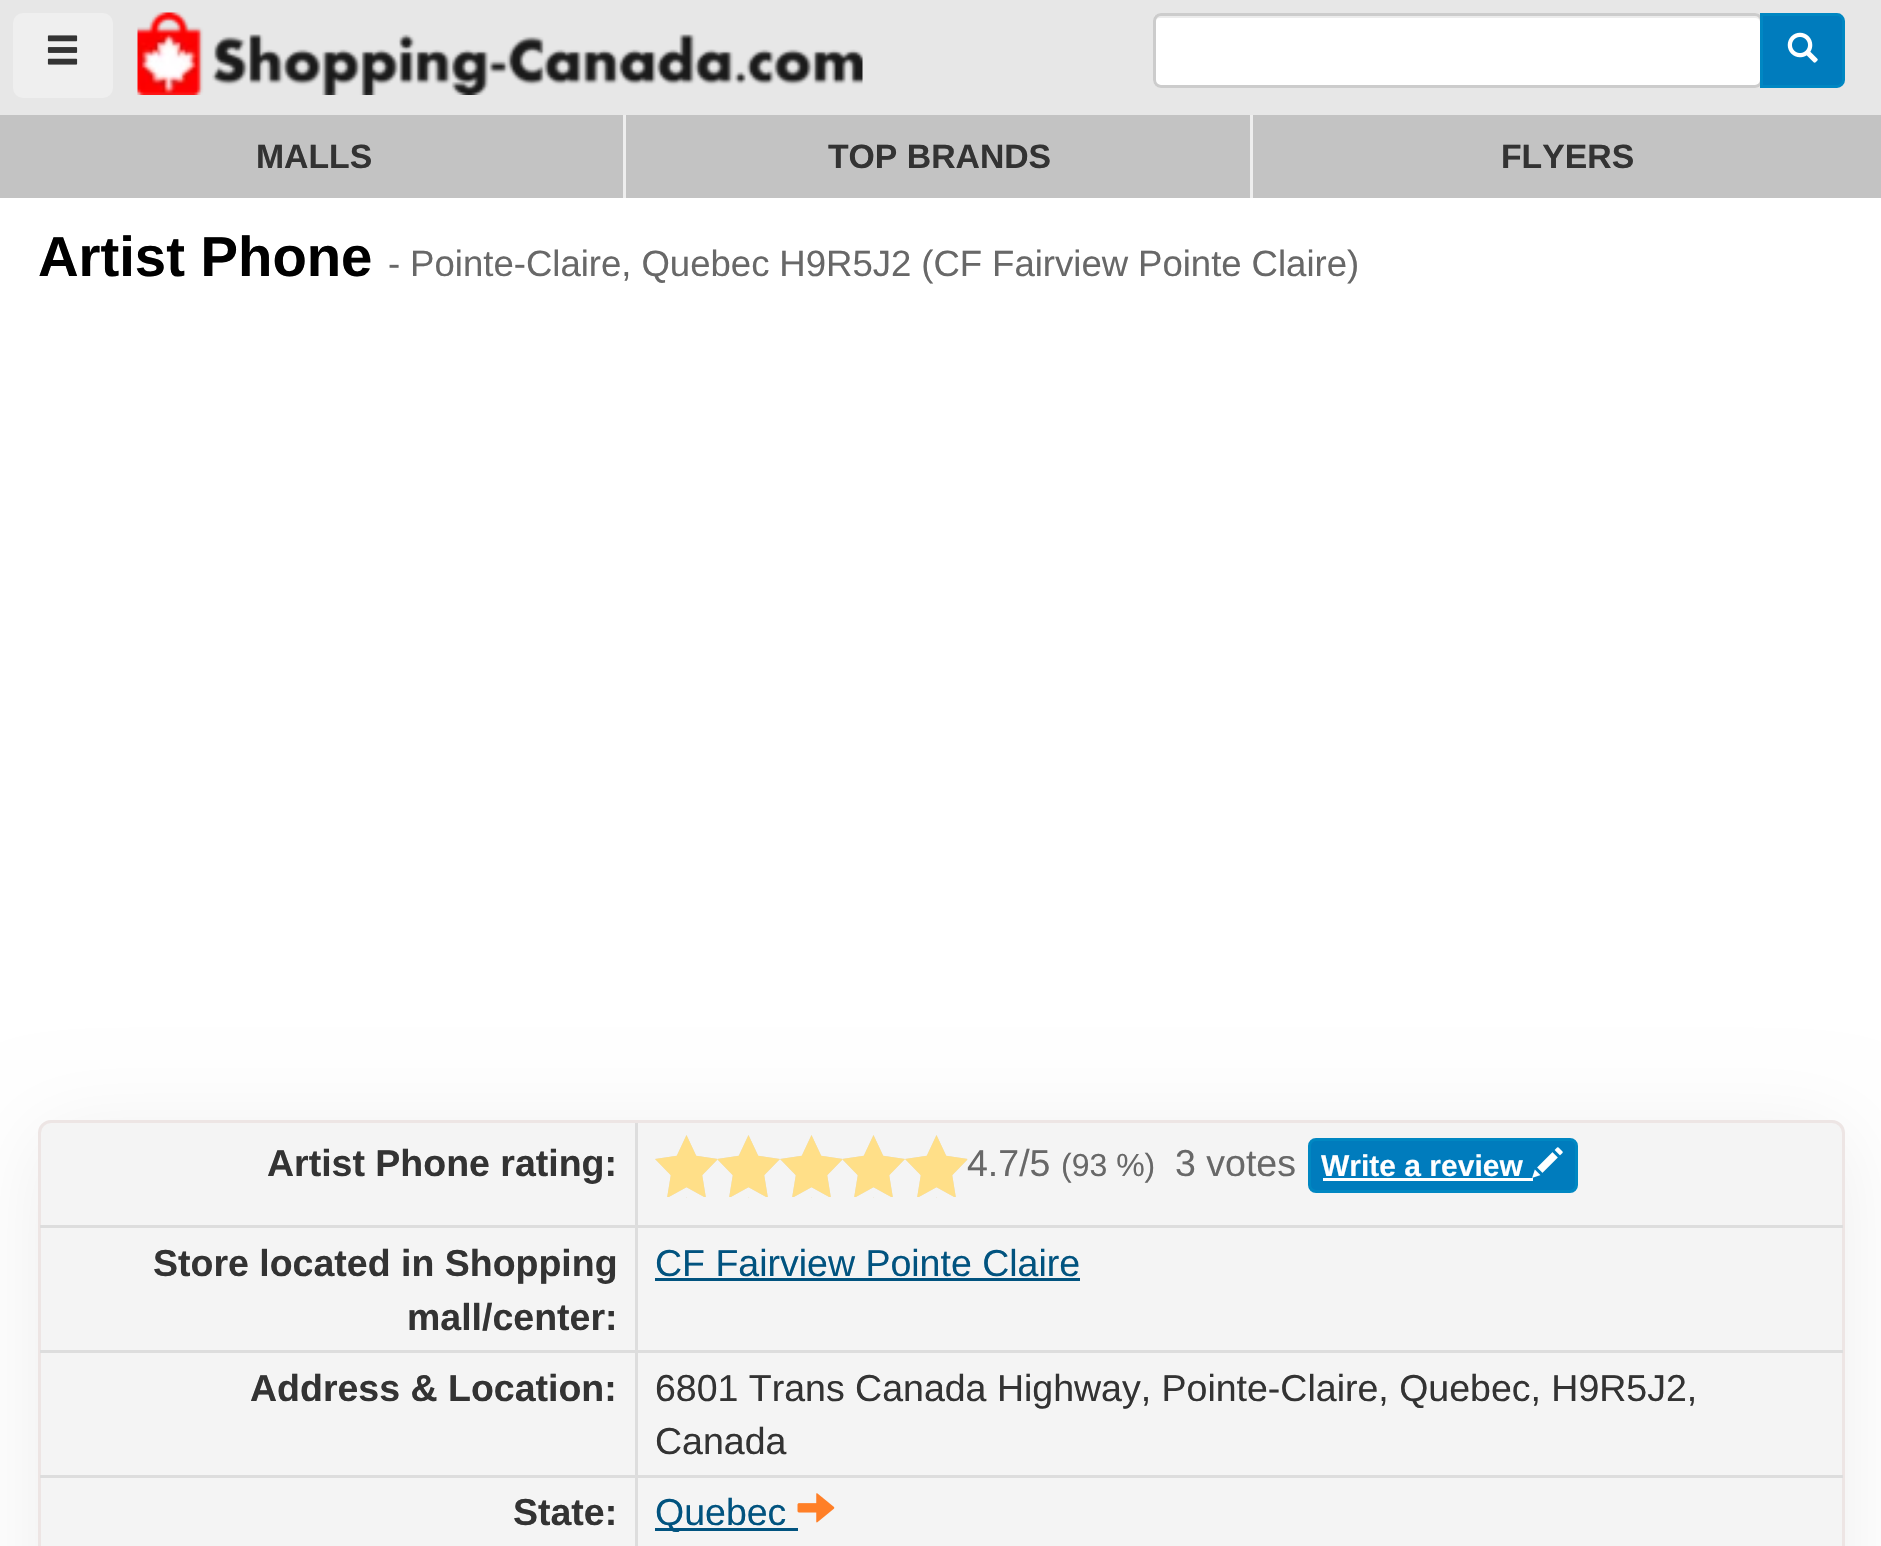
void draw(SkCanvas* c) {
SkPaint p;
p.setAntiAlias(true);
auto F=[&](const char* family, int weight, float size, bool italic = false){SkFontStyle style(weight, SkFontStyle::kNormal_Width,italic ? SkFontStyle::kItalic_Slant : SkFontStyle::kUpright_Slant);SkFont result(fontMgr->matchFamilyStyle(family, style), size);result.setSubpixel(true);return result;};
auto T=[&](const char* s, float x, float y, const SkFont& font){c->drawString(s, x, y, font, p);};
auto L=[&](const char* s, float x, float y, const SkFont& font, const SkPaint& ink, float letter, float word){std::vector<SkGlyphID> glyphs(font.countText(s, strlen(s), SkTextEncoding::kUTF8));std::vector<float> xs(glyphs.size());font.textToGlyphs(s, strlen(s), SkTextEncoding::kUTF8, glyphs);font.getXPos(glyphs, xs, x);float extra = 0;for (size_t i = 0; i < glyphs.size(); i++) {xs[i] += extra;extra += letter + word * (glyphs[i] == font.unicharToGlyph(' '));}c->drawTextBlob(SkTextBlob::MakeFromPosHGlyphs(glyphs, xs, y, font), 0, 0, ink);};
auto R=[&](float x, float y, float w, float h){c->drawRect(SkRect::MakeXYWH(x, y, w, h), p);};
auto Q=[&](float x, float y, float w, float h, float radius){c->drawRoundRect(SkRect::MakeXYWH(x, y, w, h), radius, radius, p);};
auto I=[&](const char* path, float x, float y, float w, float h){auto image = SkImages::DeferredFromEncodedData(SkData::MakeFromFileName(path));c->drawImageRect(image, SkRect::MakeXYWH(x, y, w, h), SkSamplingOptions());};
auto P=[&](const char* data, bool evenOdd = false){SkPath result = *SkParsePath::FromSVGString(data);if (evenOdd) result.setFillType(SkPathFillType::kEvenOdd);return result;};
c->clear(0xffffffff);
p.setColor(0xffe7e7e7);
R(0,0,1881,115);
p.setColor(0xffefefef);
Q(13,13,100,85,10);
I("1.png",47,35,31,30);
I("2.png",137,12,726,83);
p.setColor(0xffffffff);
Q(1153,13,610,75,8);
p.setColor(0xffececec);
c->drawPath(P("M1160 18h595c3 0 5 2 5 4c0-3-1-7-5-7h-595c-4 0-5 4-5 7c0-2 2-4 5-4z"),p);
p.setStroke(true);
p.setStrokeWidth(3);
p.setColor(0xffcccccc);
c->drawRoundRect(SkRect::MakeXYWH(1154.5,14.5,607,72),6.5,6.5,p);
p.setStroke(false);
p.setColor(0xff007cbd);
c->drawPath(P("M1761.5 14.5h75.5c3.5 0 6.5 3 6.5 6.5v59c0 3.5-3 6.5-6.5 6.5h-75.5z"),p);
p.setStroke(true);
p.setColor(0xff0087c2);
c->drawPath(P("M1761.5 14.5h75.5c3.5 0 6.5 3 6.5 6.5v59c0 3.5-3 6.5-6.5 6.5h-75.5z"),p);
I("3.png",1787,32,31,31);
p.setStroke(false);
p.setColor(0xffc3c3c3);
R(0,115,1881,83);
p.setColor(0xffeeeeee);
R(623,115,3,83);
auto f1 = F("Liberation Sans",700,33.75);
p.setColor(0xff333333);
T("MALLS",256,168,f1);
p.setColor(0xffeeeeee);
R(1250,115,3,83);
p.setColor(0xff333333);
T("TOP BRANDS",828,168,f1);
T("FLYERS",1501,168,f1);
auto f2 = F("Liberation Sans",700,56.25);
p.setColor(0xff000000);
T("Artist Phone",38,276,f2);
auto f3 = F("Liberation Sans",400,36.55);
p.setColor(0xff686868);
L("- Pointe-Claire, Quebec H9R5J2 (CF Fairview Pointe Claire)",388,276,f3,p,0,-.25);
p.setColor(0xffeeeeee);
p.setMaskFilter(SkMaskFilter::MakeBlur(kNormal_SkBlurStyle, 44));
c->drawRoundRect(SkRect::MakeXYWH(38,1133,1807,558),13,13,p);
p.setMaskFilter(nullptr);
p.setColor(0xfff4f4f4);
c->drawRoundRect(SkRect::MakeXYWH(39.5,1121.5,1804,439),11.5,11.5,p);
p.setStroke(true);
p.setColor(0xffede5e4);
c->drawRoundRect(SkRect::MakeXYWH(39.5,1121.5,1804,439),11.5,11.5,p);
p.setStroke(false);
p.setColor(0xffdddddd);
R(635,1123,3,102);
auto f4 = F("Liberation Sans",700,37.5);
p.setColor(0xff333333);
T("Artist Phone rating:",267,1176,f4);
I("4.png",655,1135,313,63);
I("5.png",655,1135,313,63);
auto f5 = F("Liberation Sans",400,37.5);
p.setColor(0xff686868);
T("4.7/5",967,1176,f5);
auto f6 = F("Liberation Sans",400,32);
T("(93 %)",1061,1176,f6);
T("3 votes",1175,1176,f5);
p.setColor(0xff007cbd);
c->drawRoundRect(SkRect::MakeXYWH(1309.5,1139.5,267,52),6.5,6.5,p);
p.setStroke(true);
p.setColor(0xff0087c2);
c->drawRoundRect(SkRect::MakeXYWH(1309.5,1139.5,267,52),6.5,6.5,p);
auto f7 = F("Liberation Sans",700,30);
p.setStroke(false);
p.setColor(0xffffffff);
T("Write a review",1321,1176,f7);
R(1323,1178,210,3);
I("6.png",1532,1147,31,31);
p.setColor(0xffdddddd);
R(40,1225,1803,3);
R(635,1225,3,125);
p.setColor(0xff333333);
T("Store located in Shopping",153,1276,f4);
T("mall/center:",407,1330,f4);
p.setColor(0xff01537f);
T("CF Fairview Pointe Claire",655,1276,f5);
R(655,1278,425,3);
p.setColor(0xffdddddd);
R(40,1350,1803,3);
R(635,1350,3,125);
p.setColor(0xff333333);
T("Address & Location:",250,1401,f4);
T("6801 Trans Canada Highway, Pointe-Claire, Quebec, H9R5J2,",655,1401,f5);
T("Canada",655,1454,f5);
p.setColor(0xffdddddd);
R(40,1475,1803,3);
R(635,1475,3,71);
p.setColor(0xff333333);
T("State:",513,1525,f4);
p.setColor(0xff01537f);
R(655,1528,143,3);
T("Quebec",655,1525,f5);
I("7.png",797,1493,38,30);
}
